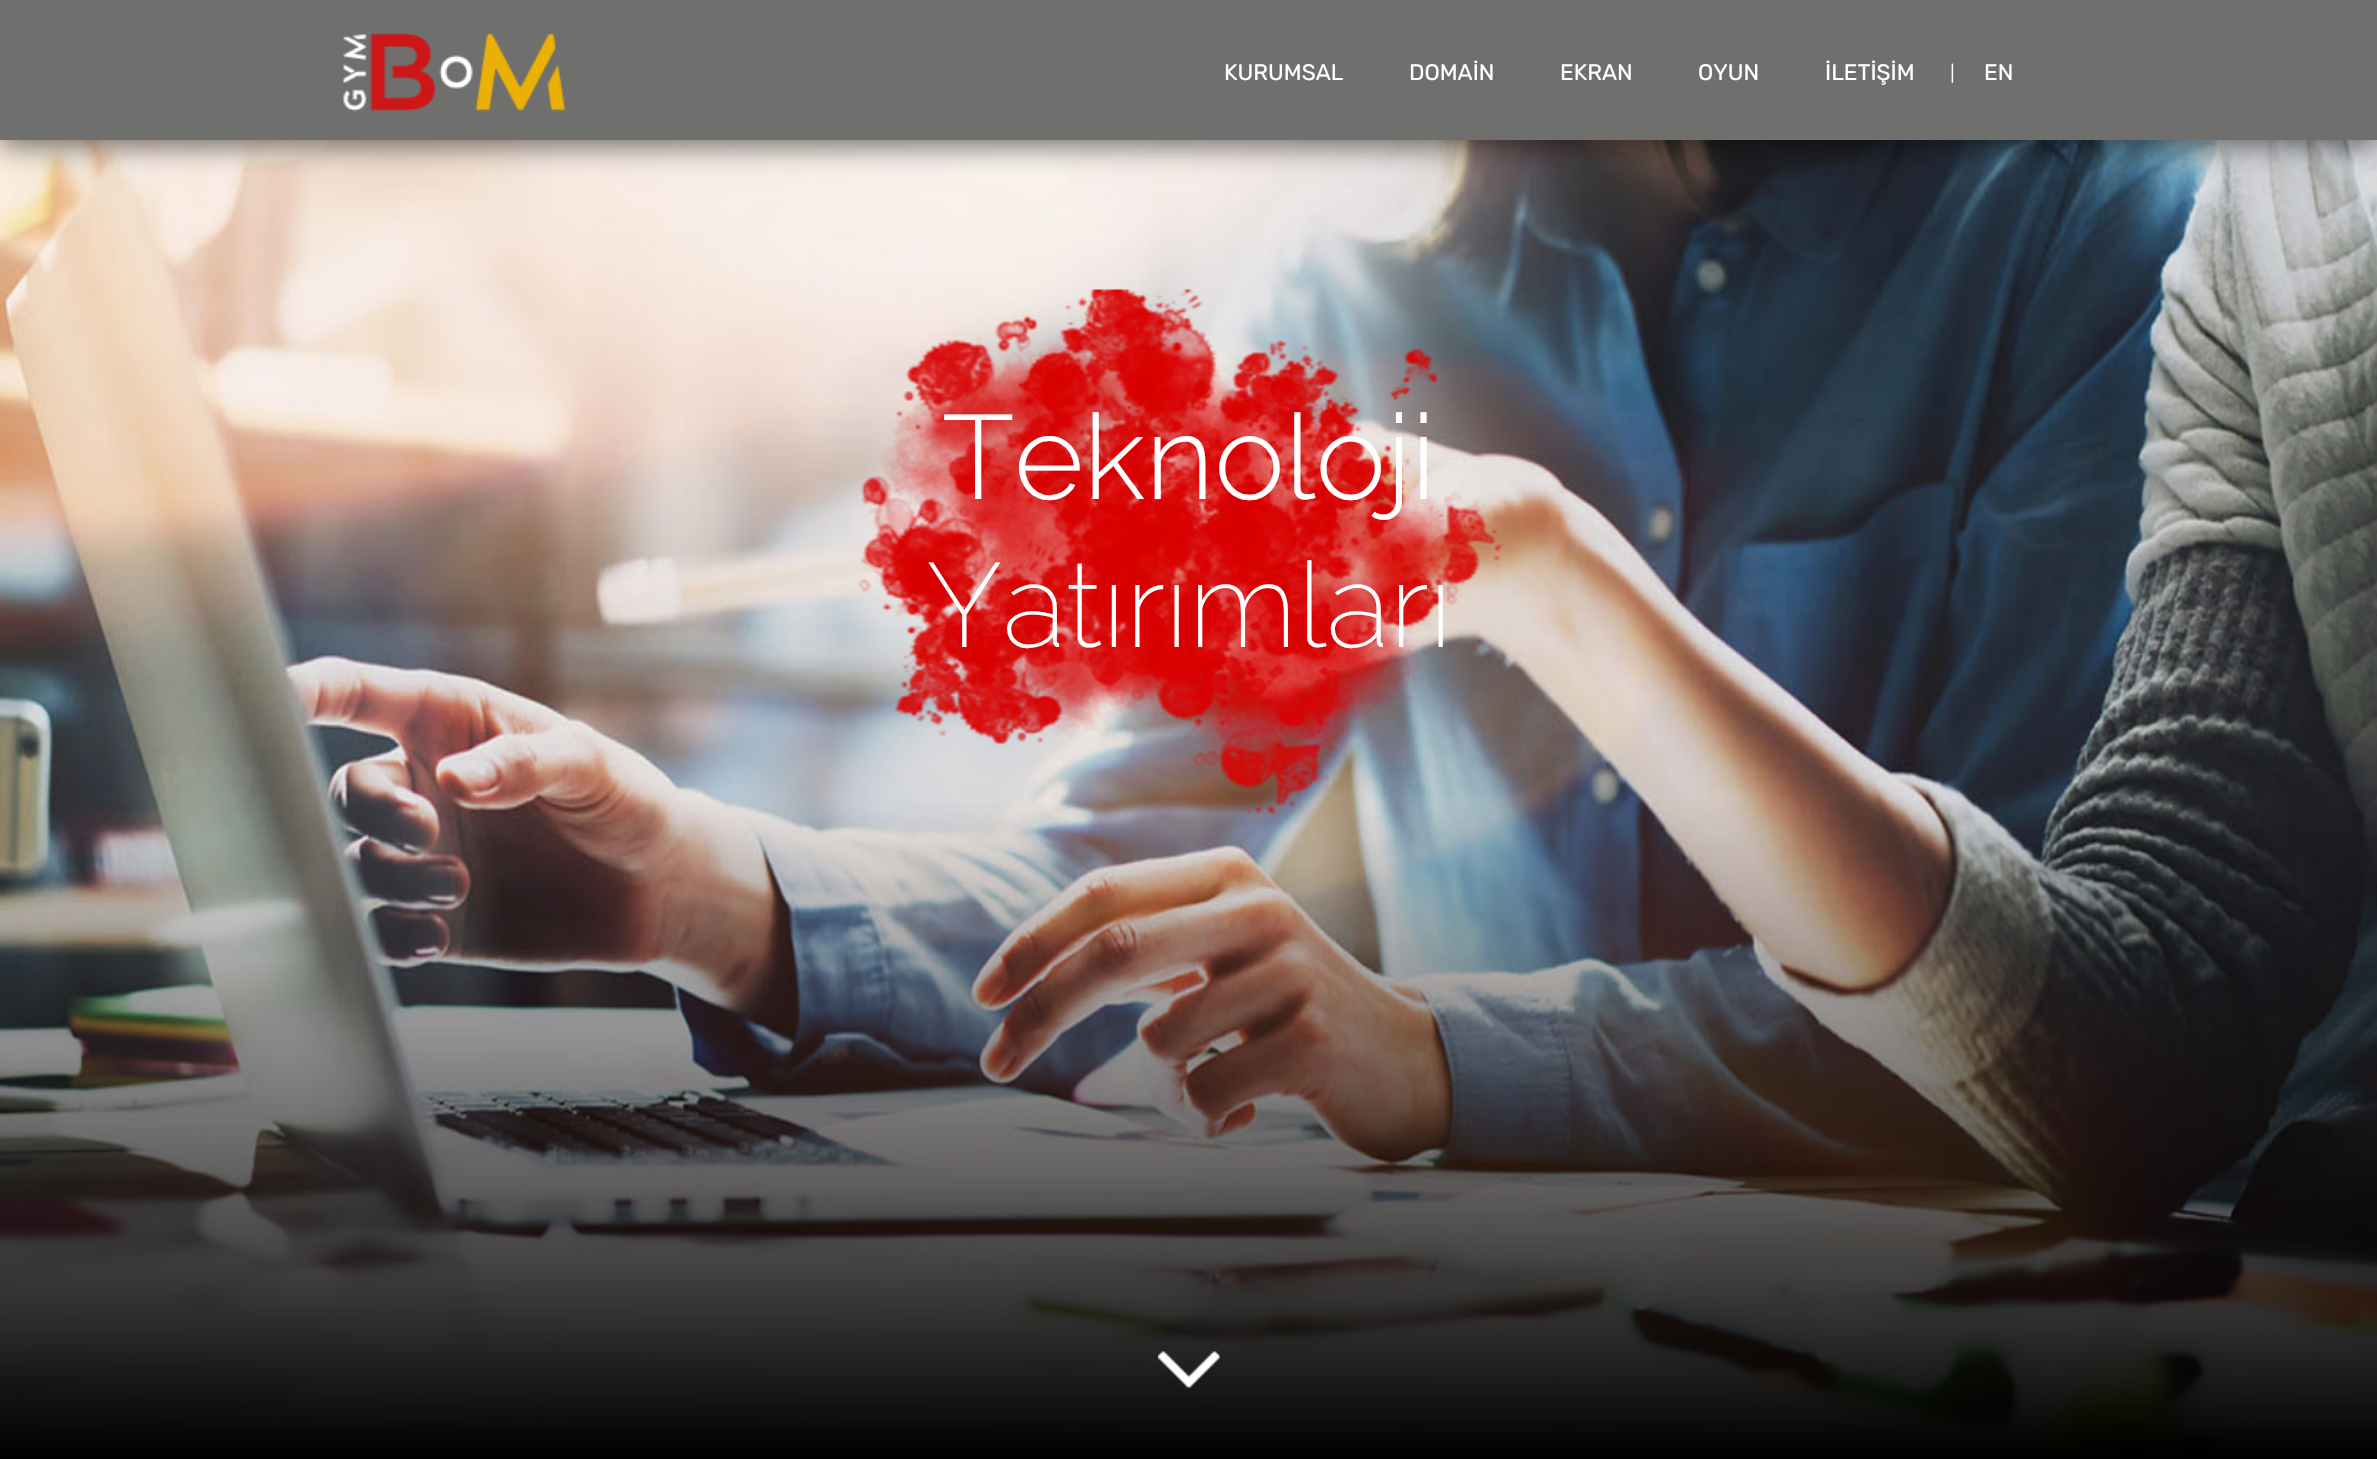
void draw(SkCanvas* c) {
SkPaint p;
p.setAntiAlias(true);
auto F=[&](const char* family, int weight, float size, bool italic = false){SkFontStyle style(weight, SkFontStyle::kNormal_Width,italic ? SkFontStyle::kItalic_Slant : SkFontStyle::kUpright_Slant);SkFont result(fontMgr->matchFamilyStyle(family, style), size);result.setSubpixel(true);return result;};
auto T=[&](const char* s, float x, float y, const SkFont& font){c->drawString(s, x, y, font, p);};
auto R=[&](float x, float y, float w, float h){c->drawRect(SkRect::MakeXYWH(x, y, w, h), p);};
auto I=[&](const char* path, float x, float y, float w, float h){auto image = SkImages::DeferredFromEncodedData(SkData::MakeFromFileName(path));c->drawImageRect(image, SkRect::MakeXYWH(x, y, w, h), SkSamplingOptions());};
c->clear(0xffffffff);
I("2.png",0,140,2377,1319);
p.setColor(0x91000000);
p.setMaskFilter(SkMaskFilter::MakeBlur(kNormal_SkBlurStyle, 14));
c->drawRect(SkRect::MakeXYWH(-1,3,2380,143),p);
p.setMaskFilter(nullptr);
p.setColor(0xff6f6f6e);
R(0,0,2377,140);
I("1.png",343,33,223,79);
auto f1 = F("Rubik",400,22.5);
p.setColor(0xffffffff);
T("KURUMSAL",1224,80,f1);
T("DOMAİN",1409,80,f1);
T("EKRAN",1560,80,f1);
T("OYUN",1698,80,f1);
T("İLETİŞİM",1825,80,f1);
auto f2 = F("Raleway",400,21);
T("|",1950,80,f2);
T("EN",1984,80,f1);
I("3.png",857,289,648,525);
auto f3 = F("Raleway",300,119);
T("Teknoloji",942,499,f3);
auto f4 = F("Raleway",200,119);
T("Yatırımları",926,647,f4);
I("4.png",1158,1351,62,37);
}
